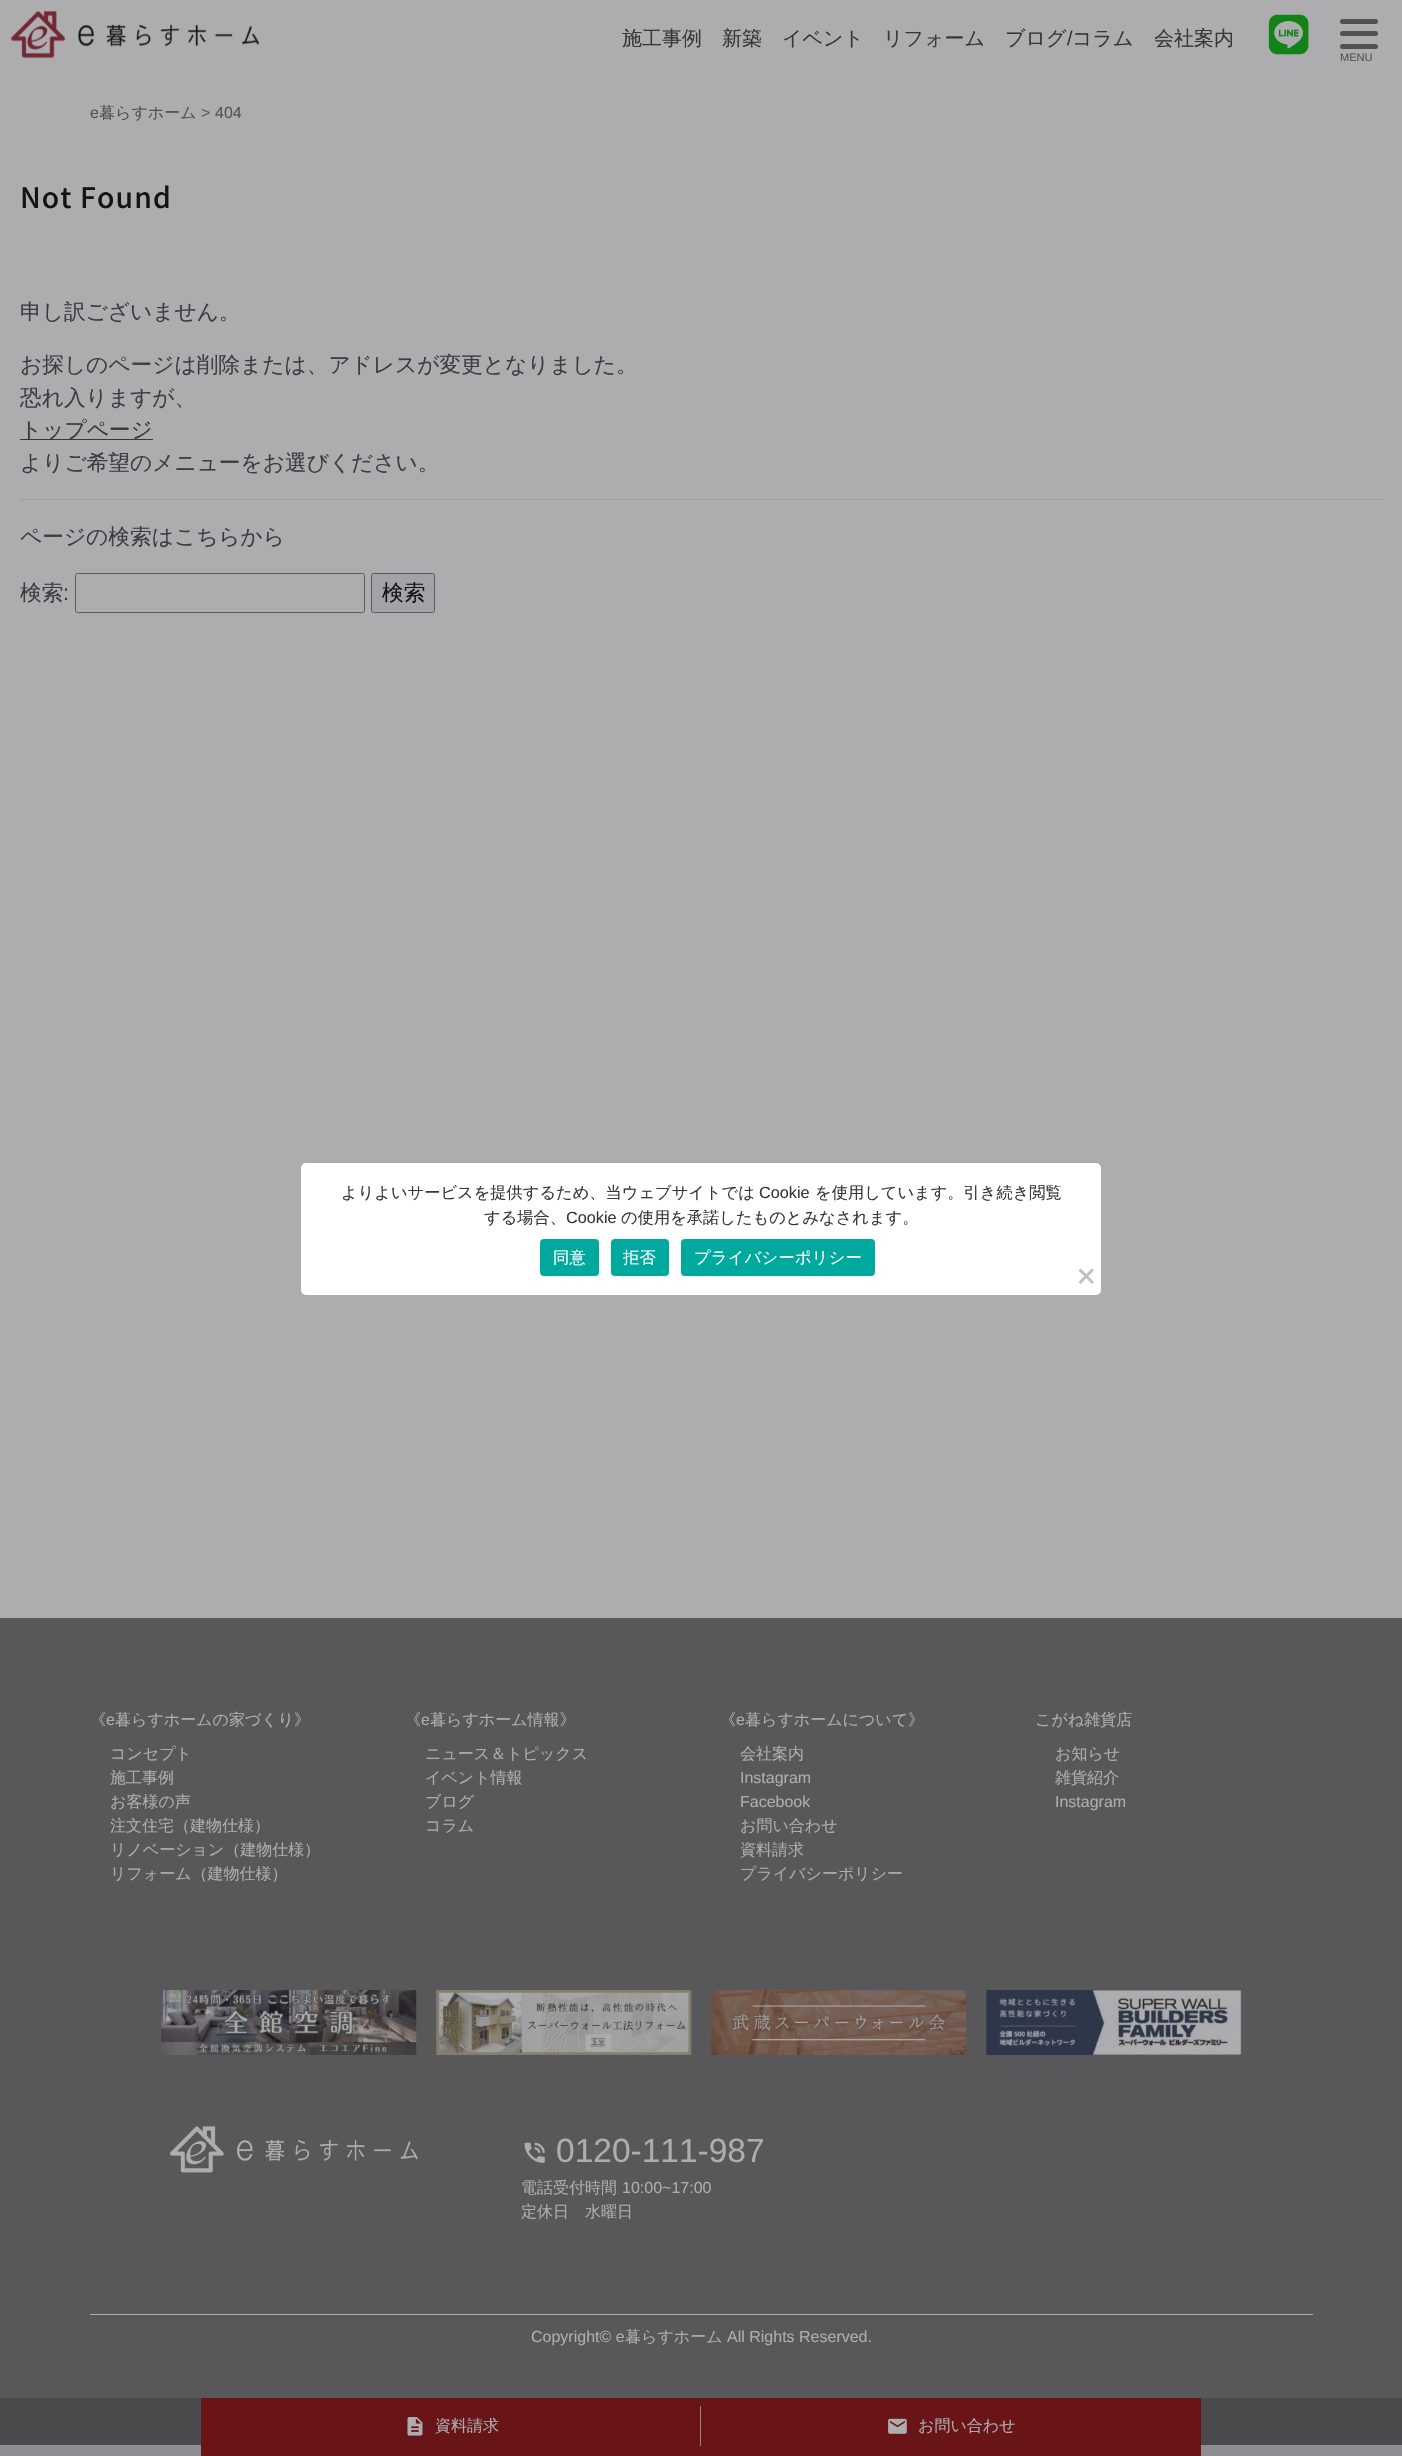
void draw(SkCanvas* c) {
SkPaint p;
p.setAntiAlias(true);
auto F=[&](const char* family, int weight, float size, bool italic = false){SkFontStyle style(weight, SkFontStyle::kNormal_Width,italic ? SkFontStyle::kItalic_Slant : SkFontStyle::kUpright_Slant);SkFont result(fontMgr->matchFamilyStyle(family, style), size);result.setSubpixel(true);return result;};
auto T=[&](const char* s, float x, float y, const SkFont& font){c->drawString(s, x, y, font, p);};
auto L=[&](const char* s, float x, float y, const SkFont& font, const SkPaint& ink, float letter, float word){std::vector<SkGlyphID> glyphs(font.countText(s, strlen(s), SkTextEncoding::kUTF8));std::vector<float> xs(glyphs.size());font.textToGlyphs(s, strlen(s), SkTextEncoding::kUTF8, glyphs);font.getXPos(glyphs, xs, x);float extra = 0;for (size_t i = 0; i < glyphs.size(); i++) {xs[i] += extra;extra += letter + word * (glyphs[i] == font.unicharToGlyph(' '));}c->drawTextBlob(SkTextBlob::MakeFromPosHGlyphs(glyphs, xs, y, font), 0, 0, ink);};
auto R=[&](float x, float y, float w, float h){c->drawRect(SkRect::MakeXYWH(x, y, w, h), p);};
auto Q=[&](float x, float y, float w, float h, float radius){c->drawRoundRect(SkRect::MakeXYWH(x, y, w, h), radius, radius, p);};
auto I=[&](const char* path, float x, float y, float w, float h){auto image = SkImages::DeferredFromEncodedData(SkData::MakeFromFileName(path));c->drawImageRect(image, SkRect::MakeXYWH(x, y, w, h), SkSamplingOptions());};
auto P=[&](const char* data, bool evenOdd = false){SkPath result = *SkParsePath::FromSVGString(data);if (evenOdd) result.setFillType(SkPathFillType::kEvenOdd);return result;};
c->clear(0xffadadb0);
p.setColor(0xff8e8e92);
R(0,2445,1402,11);
I("1.png",10,10,250,49);
auto f1 = F("WenQuanYi Zen Hei",500,20);
p.setColor(0xff383637);
T("施工事例",622,45,f1);
T("新築",722,45,f1);
T("イベント",782,45,f1);
T("リフォーム",883,45,f1);
T("ブログ",1005,45,f1);
auto f2 = F("Liberation Sans",400,20);
T("/",1067,45,f2);
T("コラム",1072,45,f1);
T("会社案内",1154,45,f1);
I("2.png",1268,14,41,41);
p.setColor(0xff515154);
Q(1340,19,38,5,2.5);
Q(1340,31,38,5,2.5);
Q(1340,44,38,5,2.5);
auto f3 = F("Liberation Sans",400,11);
T("MENU",1340,61,f3);
auto f4 = F("Liberation Sans",400,16);
T("e",90,118,f4);
auto f5 = F("WenQuanYi Zen Hei",500,16);
T("暮らすホーム",99,118,f5);
p.setColor(0xff5b5b5f);
T(">",201,118,f4);
p.setColor(0xff515154);
T("404",215,118,f4);
auto f6 = F("Noto Sans JP",500,28.25);
p.setColor(0xff141417);
L("Not Found",20,208,f6,p,1.1,0);
auto f7 = F("WenQuanYi Zen Hei",500,21.7);
p.setColor(0xff3d3d41);
T("申し訳ございません。",20,319,f7);
T("お探しのページは削除または、アドレスが変更となりました。",20,372,f7);
T("恐れ入りますが、",20,405,f7);
p.setColor(0xff383637);
R(20,439,133,1);
T("トップページ",20,437,f7);
p.setColor(0xff3d3d41);
T("よりご希望のメニューをお選びください。",20,470,f7);
p.setColor(0xff9e9ea1);
R(20,499,1363,1);
p.setColor(0xff3d3d41);
T("ページの検索はこちらから",20,544,f7);
T("検索",20,600,f7);
auto f8 = F("Liberation Sans",400,21.7);
T(":",63,600,f8);
p.setStroke(true);
p.setStrokeWidth(1);
p.setColor(0xff5b5b5e);
c->drawRoundRect(SkRect::MakeXYWH(75.5,573.5,289,39),2,2,p);
p.setStroke(false);
p.setColor(0xffa3a3a7);
c->drawRoundRect(SkRect::MakeXYWH(371.5,573.5,63,39),2,2,p);
p.setStroke(true);
p.setColor(0xff5b5b5e);
c->drawRoundRect(SkRect::MakeXYWH(371.5,573.5,63,39),2,2,p);
p.setStroke(false);
p.setColor(0xff141417);
T("検索",382,600,f7);
p.setColor(0xffffffff);
Q(301,1163,800,132,5);
auto f9 = F("WenQuanYi Zen Hei",500,16.25);
p.setColor(0xff383637);
T("よりよいサービスを提供するため、当ウェブサイトでは",341,1198,f9);
auto f10 = F("Liberation Sans",400,16.25);
T("Cookie",759,1198,f10);
T("を使用しています。引き続き閲覧",815,1198,f9);
T("する場合、",484,1223,f9);
T("Cookie",566,1223,f10);
T("の使用を承諾したものとみなされます。",621,1223,f9);
p.setColor(0xff00a99d);
Q(540,1239,59,37,4);
p.setColor(0xffffffff);
L("同意",553,1263,f9,p,.25,0);
p.setColor(0xff00a99d);
Q(611,1239,58,37,4);
p.setColor(0xffffffff);
L("拒否",623,1263,f9,p,.25,0);
p.setColor(0xff00a99d);
Q(681,1239,194,37,4);
p.setColor(0xffffffff);
L("プライバシーポリシー",694,1263,f9,p,.25,0);
p.setColor(0xffc0c0c0);
c->drawPath(P("M1092 1268.5l2 2l-13.5 13.5l-2-2z"),p);
c->drawPath(P("M1078.5 1270.5l2-2l13.5 13.5l-2 2z"),p);
p.setColor(0xff58585b);
R(0,1618,1402,780);
p.setColor(0xff4a4a4d);
R(0,2398,1402,47);
p.setColor(0xffadadb0);
T("《",90,1725,f5);
T("e",106,1725,f4);
T("暮らすホームの家づくり》",115,1725,f5);
T("コンセプト",110,1759,f5);
T("施工事例",110,1783,f5);
T("お客様の声",110,1807,f5);
T("注文住宅（建物仕様）",110,1831,f5);
T("リノベーション（建物仕様）",110,1855,f5);
T("リフォーム（建物仕様）",110,1879,f5);
T("《",405,1725,f5);
T("e",421,1725,f4);
T("暮らすホーム情報》",430,1725,f5);
T("ニュース＆トピックス",425,1759,f5);
T("イベント情報",425,1783,f5);
T("ブログ",425,1807,f5);
T("コラム",425,1831,f5);
T("《",720,1725,f5);
T("e",736,1725,f4);
T("暮らすホームについて》",745,1725,f5);
T("会社案内",740,1759,f5);
T("Instagram",740,1783,f4);
T("Facebook",740,1807,f4);
T("お問い合わせ",740,1831,f5);
T("資料請求",740,1855,f5);
T("プライバシーポリシー",740,1879,f5);
T("こがね雑貨店",1035,1725,f5);
T("お知らせ",1055,1759,f5);
T("雑貨紹介",1055,1783,f5);
T("Instagram",1055,1807,f4);
I("3.png",161,1990,256,65);
I("4.png",436,1990,256,65);
I("5.png",711,1990,256,65);
I("6.png",986,1990,256,65);
R(90,2314,1223,1);
I("7.png",170,2126,248,47);
I("8.png",524,2142,21,21);
auto f11 = F("Liberation Sans",400,33.5);
T("0120-111-987",556,2162,f11);
T("電話受付時間",521,2193,f5);
T("10:00~17:00",622,2193,f4);
T("定休日　水曜日",521,2217,f5);
T("Copyright© e",531,2342,f4);
T("暮らすホーム",625,2342,f5);
T("All Rights Reserved.",727,2342,f4);
p.setColor(0xff691518);
R(201,2398,1000,58);
I("9.png",407,2417,16,19);
p.setColor(0xffadadb0);
T("資料請求",435,2431,f5);
p.setColor(0xff997f83);
R(700,2406,1,40);
I("10.png",888,2418,19,16);
p.setColor(0xffadadb0);
T("お問い合わせ",918,2431,f5);
}
